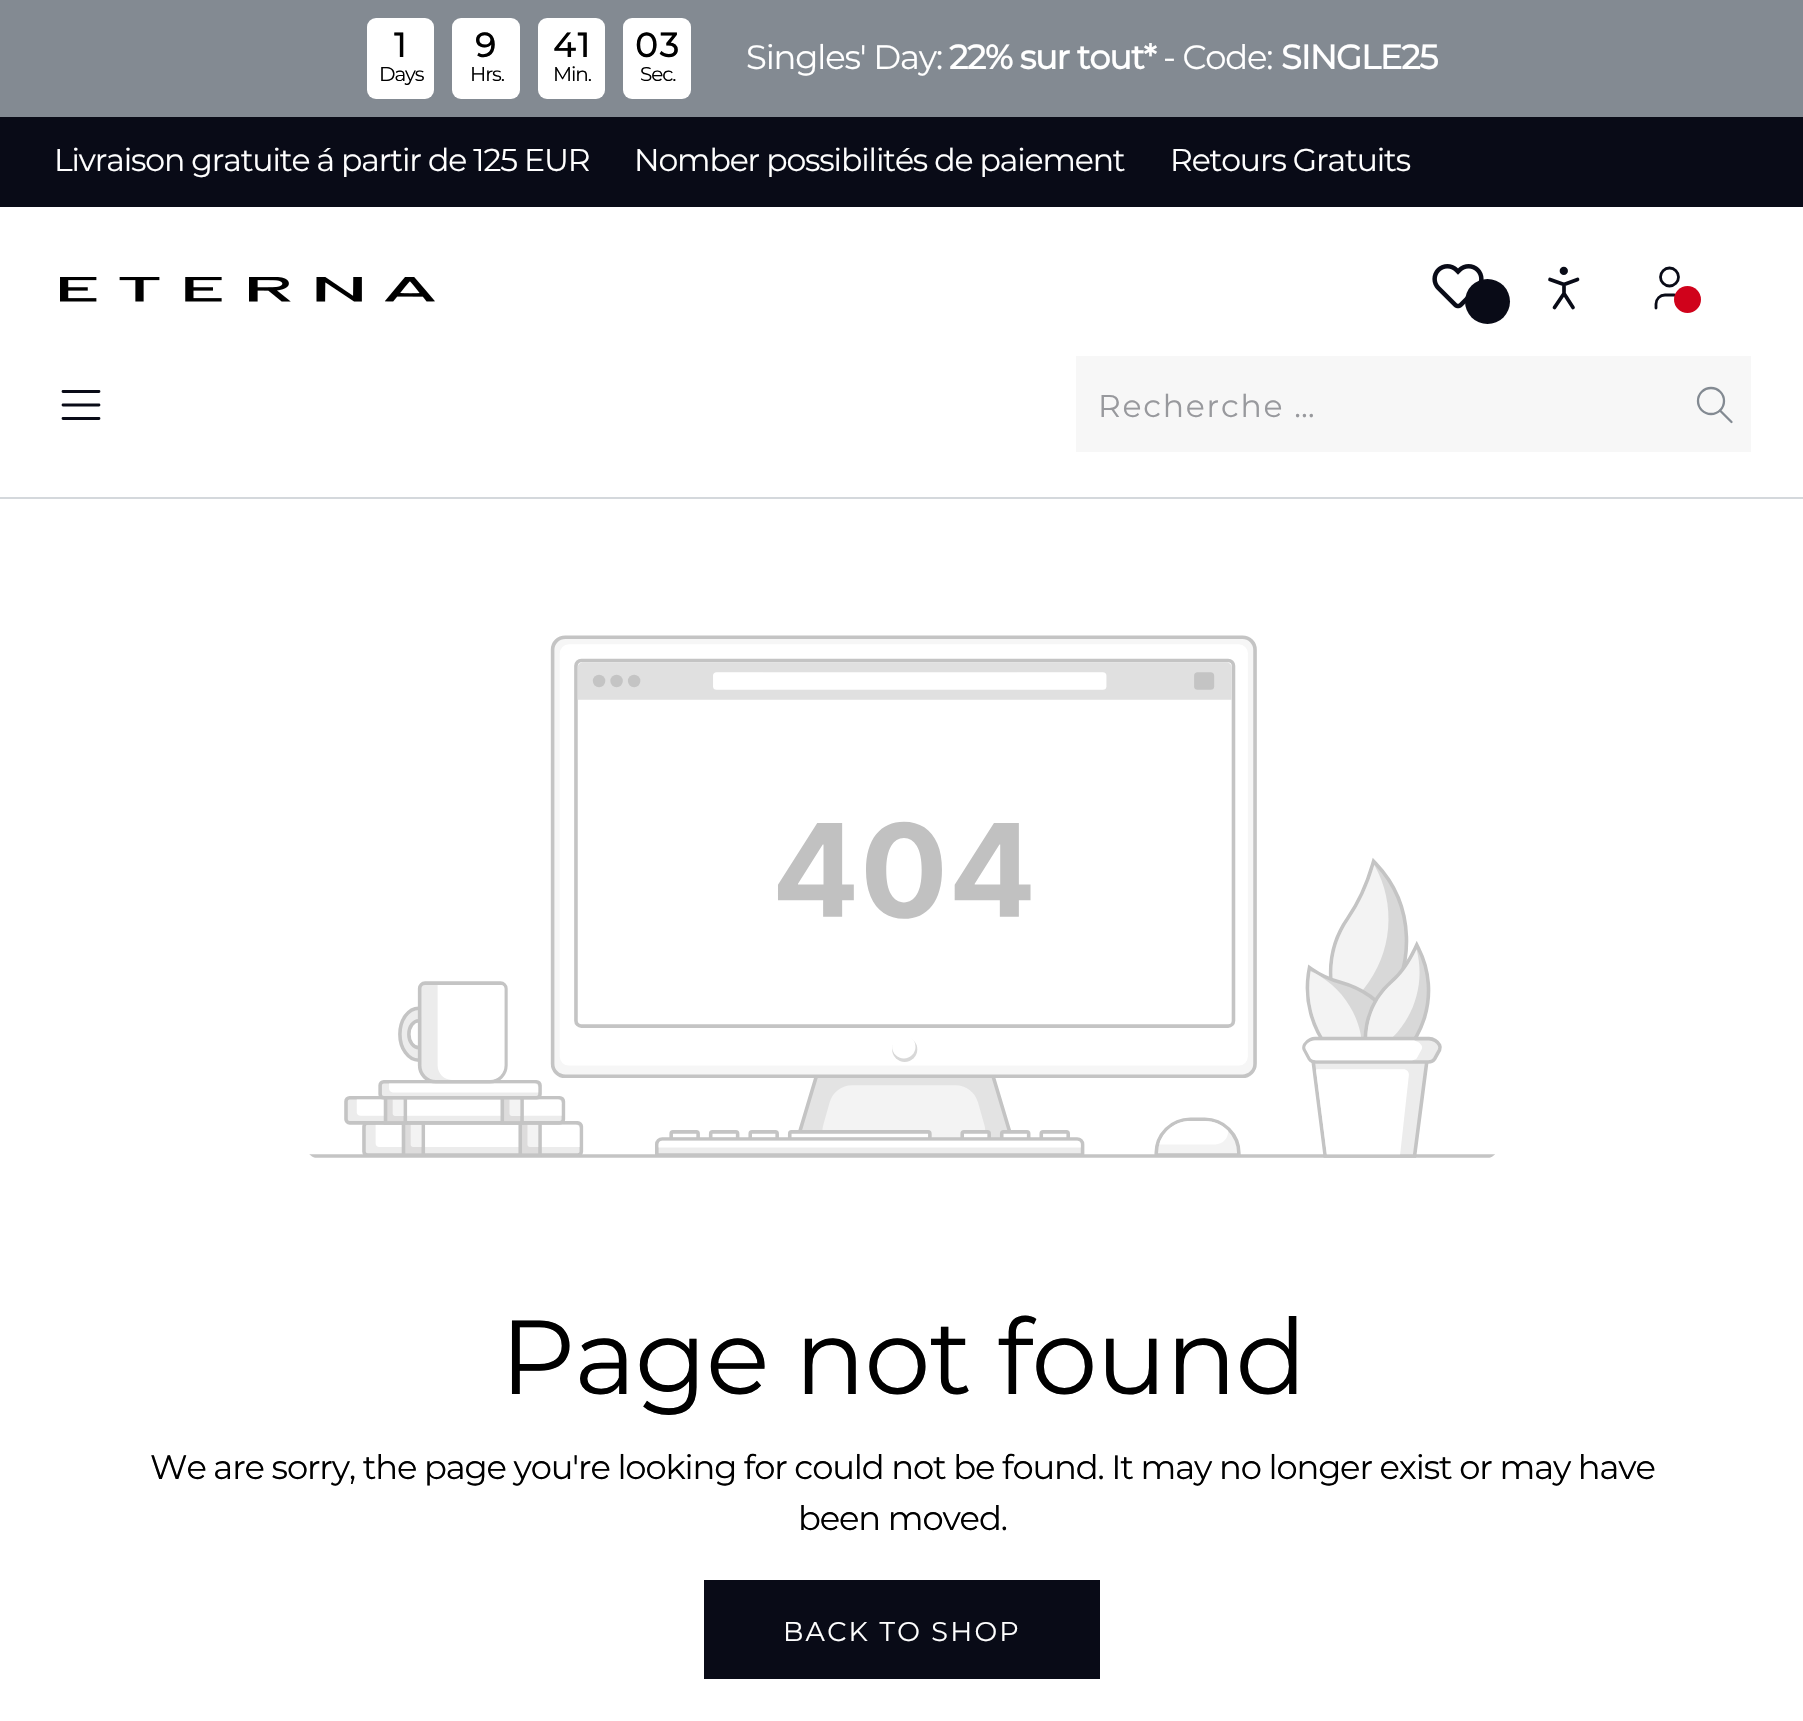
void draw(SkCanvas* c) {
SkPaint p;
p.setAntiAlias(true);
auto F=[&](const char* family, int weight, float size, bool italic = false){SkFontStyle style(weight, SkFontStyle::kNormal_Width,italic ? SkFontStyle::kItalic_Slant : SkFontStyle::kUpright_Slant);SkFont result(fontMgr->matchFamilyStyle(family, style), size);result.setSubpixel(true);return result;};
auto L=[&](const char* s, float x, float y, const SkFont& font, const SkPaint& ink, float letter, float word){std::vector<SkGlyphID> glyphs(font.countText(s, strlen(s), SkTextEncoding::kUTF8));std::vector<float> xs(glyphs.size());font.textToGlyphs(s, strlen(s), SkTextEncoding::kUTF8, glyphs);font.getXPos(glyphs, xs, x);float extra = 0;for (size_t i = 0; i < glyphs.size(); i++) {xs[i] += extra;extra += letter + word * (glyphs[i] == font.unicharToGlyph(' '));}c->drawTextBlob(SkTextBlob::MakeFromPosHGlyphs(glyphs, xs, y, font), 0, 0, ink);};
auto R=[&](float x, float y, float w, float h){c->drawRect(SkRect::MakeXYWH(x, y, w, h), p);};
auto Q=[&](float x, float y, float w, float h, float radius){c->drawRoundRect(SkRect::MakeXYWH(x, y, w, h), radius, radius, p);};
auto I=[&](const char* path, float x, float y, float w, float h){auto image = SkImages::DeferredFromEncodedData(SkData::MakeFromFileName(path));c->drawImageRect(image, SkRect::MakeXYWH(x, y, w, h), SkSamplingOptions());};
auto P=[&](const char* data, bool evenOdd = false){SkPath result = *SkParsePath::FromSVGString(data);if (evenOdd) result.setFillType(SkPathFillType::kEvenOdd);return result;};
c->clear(0xffffffff);
p.setColor(0xff838a92);
R(0,0,1803,117);
p.setColor(0xffffffff);
Q(367,18,67,81,9);
auto f1 = F("Montserrat",700,33.75);
p.setColor(0xff000000);
L("1",394,57,f1,p,2.25,0);
auto f2 = F("Montserrat",400,20);
L("Days",379,81,f2,p,-1.12,0);
p.setColor(0xffffffff);
Q(452,18,68,81,9);
p.setColor(0xff000000);
L("9",475,57,f1,p,2.25,0);
L("Hrs.",470,81,f2,p,-1.12,0);
p.setColor(0xffffffff);
Q(538,18,67,81,9);
p.setColor(0xff000000);
L("41",553,57,f1,p,2.25,0);
L("Min.",553,81,f2,p,-1.12,0);
p.setColor(0xffffffff);
Q(623,18,68,81,9);
p.setColor(0xff000000);
L("03",635,57,f1,p,2.25,0);
L("Sec.",640,81,f2,p,-1.12,0);
auto f3 = F("Montserrat",400,33.75);
p.setColor(0xffffffff);
L("Singles' Day:",746,69,f3,p,-1.12,0);
L("22% sur tout*",949,69,f1,p,-1.12,0);
L("- Code:",1163,69,f3,p,-1.12,0);
L("SINGLE25",1281,69,f1,p,-1.12,0);
p.setColor(0xff090b17);
R(0,117,1803,90);
auto f4 = F("Montserrat",400,31.5);
p.setColor(0xffffffff);
L("Livraison gratuite á partir de 125 EUR",54,171,f4,p,-1.12,0);
L("Nomber possibilités de paiement",634,171,f4,p,-1.12,0);
L("Retours Gratuits",1170,171,f4,p,-1.12,0);
p.setColor(0xffd4d8dc);
R(0,497,1803,2);
I("1.png",60,277,375,25);
I("2.png",1432,264,52,45);
p.setColor(0xff090b17);
c->drawCircle(1487.5,301.5,22.5,p);
p.setStroke(true);
p.setStrokeWidth(3.7);
p.setStrokeCap(SkPaint::kRound_Cap);
p.setStrokeJoin(SkPaint::kRound_Join);
c->drawPath(P("M1554.5 307.5l9.5-14l9 14m-9-14v-9l13.5-5m-27.5 0l14 5"),p);
p.setStroke(false);
p.setColor(0xff000000);
c->drawCircle(1563.8,270.9,2.3,p);
p.setStroke(true);
p.setStrokeCap(SkPaint::kButt_Cap);
p.setStrokeJoin(SkPaint::kMiter_Join);
p.setColor(0xff090b17);
c->drawCircle(1563.8,270.9,2.3,p);
p.setStrokeWidth(2.8);
c->drawCircle(1669.5,277,9,p);
p.setStrokeCap(SkPaint::kRound_Cap);
p.setStrokeJoin(SkPaint::kRound_Join);
c->drawPath(P("M1656 308v-4c0-5 4-9 9-9h9c5 0 9 4 9 9v4"),p);
p.setStroke(false);
p.setColor(0xffd0021b);
c->drawCircle(1687.5,299.5,13.5,p);
p.setStroke(true);
p.setColor(0xff090b17);
c->drawPath(P("M63 391.5h36m-36 13.5h36m-36 13.5h36"),p);
p.setStroke(false);
p.setColor(0xfff7f7f7);
R(1076,356,675,96);
p.setColor(0xff98999d);
L("Recherche …",1098,417,f4,p,1.75,0);
p.setStroke(true);
p.setStrokeWidth(2.3);
p.setStrokeCap(SkPaint::kButt_Cap);
p.setStrokeJoin(SkPaint::kMiter_Join);
p.setColor(0xff838a92);
c->drawCircle(1711,401,13,p);
p.setStrokeCap(SkPaint::kRound_Cap);
p.setStrokeJoin(SkPaint::kRound_Join);
c->drawPath(P("M1731.5 422l-11.5-11.5"),p);
I("3.png",309,635,1186,523);
auto f5 = F("Montserrat",400,105);
p.setStroke(false);
p.setColor(0xff000000);
L("Page not found",500,1394,f5,p,-1.12,0);
L("We are sorry, the page you're looking for could not be found. It may no longer exist or may have",150,1479,f3,p,-1.12,0);
L("been moved.",798,1530,f3,p,-1.12,0);
p.setColor(0xff090b17);
R(704,1580,396,99);
auto f6 = F("Montserrat",400,27);
p.setColor(0xffffffff);
L("BACK TO SHOP",783,1641,f6,p,2.25,0);
}
